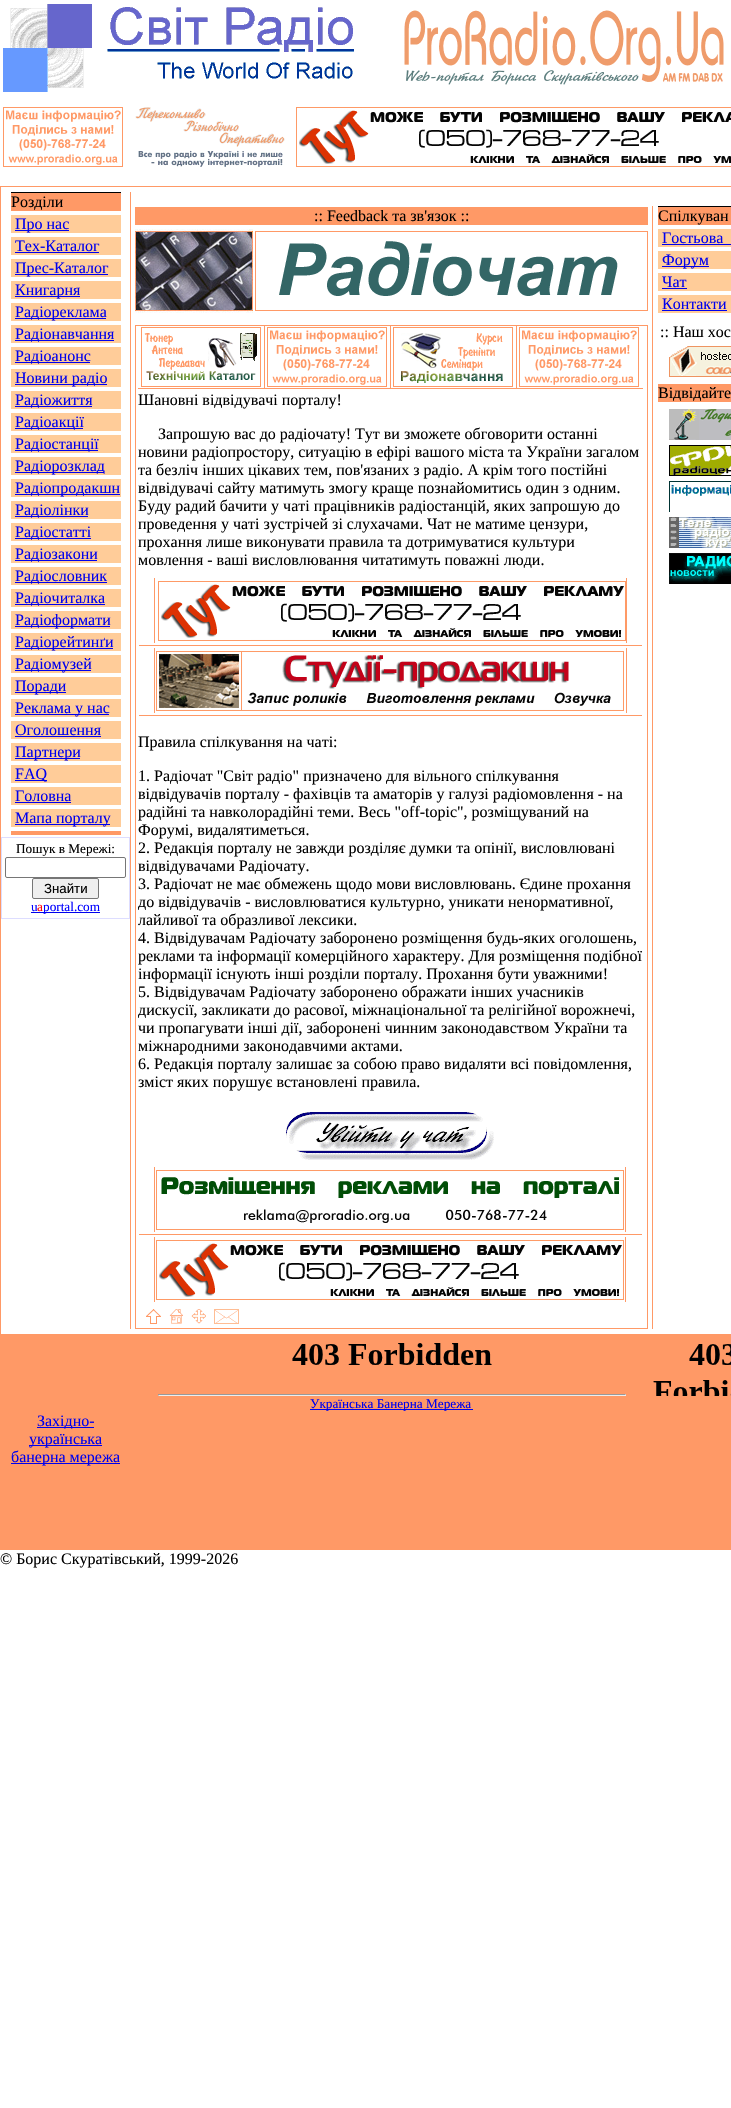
void draw(SkCanvas* c) {
SkPaint p;
p.setAntiAlias(true);
auto F=[&](const char* family, int weight, float size, bool italic = false){SkFontStyle style(weight, SkFontStyle::kNormal_Width,italic ? SkFontStyle::kItalic_Slant : SkFontStyle::kUpright_Slant);SkFont result(fontMgr->matchFamilyStyle(family, style), size);result.setSubpixel(true);return result;};
auto T=[&](const char* s, float x, float y, const SkFont& font){c->drawString(s, x, y, font, p);};
auto R=[&](float x, float y, float w, float h){c->drawRect(SkRect::MakeXYWH(x, y, w, h), p);};
auto I=[&](const char* path, float x, float y, float w, float h){auto image = SkImages::DeferredFromEncodedData(SkData::MakeFromFileName(path));c->drawImageRect(image, SkRect::MakeXYWH(x, y, w, h), SkSamplingOptions());};
c->clear(0xffffffff);
I("1.png",3,4,351,88);
I("2.png",404,10,320,75);
I("3.png",3,107,120,60);
I("4.png",135,107,150,60);
I("5.png",296,107,435,60);
p.setColor(0xffff9966);
R(0,186,731,1);
R(0,187,1,1147);
p.setColor(0xff000000);
R(11,192,110,1);
p.setColor(0xffff9966);
R(11,193,110,18);
auto f1 = F("Liberation Serif",400,16);
p.setColor(0xff000000);
T("Розділи",11,207,f1);
p.setColor(0xffffcc99);
R(11,215,110,18);
p.setColor(0xff0000ee);
R(15,230,54,1);
T("Про нас",15,229,f1);
p.setColor(0xffffcc99);
R(11,237,110,18);
p.setColor(0xff0000ee);
T("Тех-Каталог",15,251,f1);
R(15,252,84,1);
p.setColor(0xffffcc99);
R(11,259,110,18);
p.setColor(0xff0000ee);
R(15,274,93,1);
T("Прес-Каталог",15,273,f1);
p.setColor(0xffffcc99);
R(11,281,110,18);
p.setColor(0xff0000ee);
R(15,296,65,1);
T("Книгарня",15,295,f1);
p.setColor(0xffffcc99);
R(11,303,110,18);
p.setColor(0xff0000ee);
R(15,318,91,1);
T("Радіореклама",15,317,f1);
p.setColor(0xffffcc99);
R(11,325,110,18);
p.setColor(0xff0000ee);
R(15,340,99,1);
T("Радіонавчання",15,339,f1);
p.setColor(0xffffcc99);
R(11,347,110,18);
p.setColor(0xff0000ee);
R(15,362,75,1);
T("Радіоанонс",15,361,f1);
p.setColor(0xffffcc99);
R(11,369,110,18);
p.setColor(0xff0000ee);
R(15,384,92,1);
T("Новини радіо",15,383,f1);
p.setColor(0xffffcc99);
R(11,391,110,18);
p.setColor(0xff0000ee);
R(15,406,77,1);
T("Радіожиття",15,405,f1);
p.setColor(0xffffcc99);
R(11,413,110,18);
p.setColor(0xff0000ee);
R(15,428,68,1);
T("Радіоакції",15,427,f1);
p.setColor(0xffffcc99);
R(11,435,110,18);
p.setColor(0xff0000ee);
R(15,450,83,1);
T("Радіостанції",15,449,f1);
p.setColor(0xffffcc99);
R(11,457,110,18);
p.setColor(0xff0000ee);
R(15,472,89,1);
T("Радіорозклад",15,471,f1);
p.setColor(0xffffcc99);
R(11,479,110,18);
p.setColor(0xff0000ee);
R(15,494,105,1);
T("Радіопродакшн",15,493,f1);
p.setColor(0xffffcc99);
R(11,501,110,18);
p.setColor(0xff0000ee);
R(15,516,73,1);
T("Радіолінки",15,515,f1);
p.setColor(0xffffcc99);
R(11,523,110,18);
p.setColor(0xff0000ee);
R(15,538,76,1);
T("Радіостатті",15,537,f1);
p.setColor(0xffffcc99);
R(11,545,110,18);
p.setColor(0xff0000ee);
R(15,560,82,1);
T("Радіозакони",15,559,f1);
p.setColor(0xffffcc99);
R(11,567,110,18);
p.setColor(0xff0000ee);
R(15,582,92,1);
T("Радіословник",15,581,f1);
p.setColor(0xffffcc99);
R(11,589,110,18);
p.setColor(0xff0000ee);
R(15,604,90,1);
T("Радіочиталка",15,603,f1);
p.setColor(0xffffcc99);
R(11,611,110,18);
p.setColor(0xff0000ee);
R(15,626,95,1);
T("Радіоформати",15,625,f1);
p.setColor(0xffffcc99);
R(11,633,110,18);
p.setColor(0xff0000ee);
R(15,648,98,1);
T("Радіорейтинґи",15,647,f1);
p.setColor(0xffffcc99);
R(11,655,110,18);
p.setColor(0xff0000ee);
R(15,670,76,1);
T("Радіомузей",15,669,f1);
p.setColor(0xffffcc99);
R(11,677,110,18);
p.setColor(0xff0000ee);
R(15,692,51,1);
T("Поради",15,691,f1);
p.setColor(0xffffcc99);
R(11,699,110,18);
p.setColor(0xff0000ee);
R(15,714,94,1);
T("Реклама у нас",15,713,f1);
p.setColor(0xffffcc99);
R(11,721,110,18);
p.setColor(0xff0000ee);
T("Оголошення",15,735,f1);
R(15,736,86,1);
p.setColor(0xffffcc99);
R(11,743,110,18);
p.setColor(0xff0000ee);
R(15,758,65,1);
T("Партнери",15,757,f1);
p.setColor(0xffffcc99);
R(11,765,110,18);
p.setColor(0xff0000ee);
R(15,780,32,1);
T("FAQ",15,779,f1);
p.setColor(0xffffcc99);
R(11,787,110,18);
p.setColor(0xff0000ee);
T("Головна",15,801,f1);
R(15,802,56,1);
p.setColor(0xffffcc99);
R(11,809,110,18);
p.setColor(0xff0000ee);
R(15,824,95,1);
T("Мапа порталу",15,823,f1);
p.setColor(0xffff9966);
R(11,831,110,4);
p.setStroke(true);
p.setStrokeWidth(1);
p.setColor(0xffddddff);
c->drawRect(SkRect::MakeXYWH(1.5,837.5,128,81),p);
auto f2 = F("Liberation Serif",400,13.25);
p.setStroke(false);
p.setColor(0xff000000);
T("Пошук в Мережi:",16,853,f2);
p.setStroke(true);
p.setColor(0xff767676);
c->drawRoundRect(SkRect::MakeXYWH(5.5,857.5,120,20),1.5,1.5,p);
p.setStroke(false);
p.setColor(0xffefefef);
c->drawRoundRect(SkRect::MakeXYWH(32.5,878.5,66,20),1.5,1.5,p);
p.setStroke(true);
p.setColor(0xff767676);
c->drawRoundRect(SkRect::MakeXYWH(32.5,878.5,66,20),1.5,1.5,p);
auto f3 = F("Liberation Sans",400,13.25);
p.setStroke(false);
p.setColor(0xff000000);
T("Знайти",44,893,f3);
p.setColor(0xff0000ff);
T("u",31,911,f2);
p.setColor(0xff0000ee);
R(31,912,69,1);
p.setColor(0xffff0000);
T("a",37,911,f2);
p.setColor(0xff0000ff);
T("portal.com",43,911,f2);
p.setColor(0xffff9966);
R(130,192,1,1137);
R(135,207,513,18);
p.setColor(0xff000000);
T(":: Feedback та зв'язок ::",314,221,f1);
p.setColor(0xffff9966);
R(652,206,1,1123);
p.setColor(0xff000000);
R(658,206,73,1);
p.setColor(0xffff9966);
R(658,207,73,18);
p.setColor(0xff000000);
T("Спілкуван",658,221,f1);
p.setColor(0xffffcc99);
R(658,229,73,18);
p.setColor(0xff0000ee);
T("Гостьова",662,243,f1);
R(662,244,69,1);
p.setColor(0xffffcc99);
R(658,251,73,18);
p.setColor(0xff0000ee);
R(662,266,47,1);
T("Форум",662,265,f1);
p.setColor(0xffffcc99);
R(658,273,73,18);
p.setColor(0xff0000ee);
T("Чат",662,287,f1);
R(662,288,25,1);
p.setColor(0xffffcc99);
R(658,295,73,18);
p.setColor(0xff0000ee);
T("Контакти",662,309,f1);
R(662,310,65,1);
I("6.png",135,229,118,84);
I("7.png",255,231,393,80);
p.setColor(0xff000000);
T(":: Наш хос",660,337,f1);
I("8.png",669,346,62,31);
p.setColor(0xffff9966);
R(658,384,73,18);
p.setColor(0xff000000);
T("Відвідайте",658,398,f1);
I("9.png",669,409,62,31);
I("10.png",669,445,62,31);
I("11.png",669,481,62,31);
I("12.png",669,517,62,31);
I("13.png",669,553,62,31);
p.setColor(0xffff9966);
R(135,325,513,1);
R(135,326,1,1002);
I("14.png",141,327,120,60);
R(264,326,1,62);
I("3.png",267,327,120,60);
R(390,326,1,62);
I("15.png",393,327,120,60);
R(516,326,1,62);
I("3.png",519,327,120,60);
R(647,326,1,1002);
R(138,388,505,1);
p.setColor(0xff000000);
T("Шановні відвідувачі порталу!",138,405,f1);
T("Запрошую вас до радіочату! Тут ви зможете обговорити останні",158,439,f1);
T("новини радіопростору, ситуацію в ефірі вашого міста та України загалом",138,457,f1);
T("та безліч інших цікавих тем, пов'язаних з радіо. А крім того постійні",138,475,f1);
T("відвідувачі сайту матимуть змогу краще познайомитись один з одним.",138,493,f1);
T("Буду радий бачити у чаті працівників радіостанцій, яких запрошую до",138,511,f1);
T("проведення у чаті зустрічей зі слухачами. Чат не матиме цензури,",138,529,f1);
T("прохання лише виконувати правила та дотримуватися культури",138,547,f1);
T("мовлення - ваші висловлювання читатимуть поважні люди.",138,565,f1);
p.setColor(0xffff9966);
R(154,578,1,65);
I("16.png",158,581,468,60);
R(626,578,1,65);
R(139,645,503,1);
R(154,648,1,65);
I("17.png",156,651,468,60);
R(626,648,1,65);
R(139,715,503,1);
p.setColor(0xff000000);
T("Правила спілкування на чаті:",138,747,f1);
T("1. Радіочат \"Світ радіо\" призначено для вільного спілкування",138,781,f1);
T("відвідувачів порталу - фахівців та аматорів у галузі радіомовлення - на",138,799,f1);
T("радійні та навколорадійні теми. Весь \"off-topic\", розміщуваний на",138,817,f1);
T("Форумі, видалятиметься.",138,835,f1);
T("2. Редакція порталу не завжди розділяє думки та опінії, висловлювані",138,853,f1);
T("відвідувачами Радіочату.",138,871,f1);
T("3. Радіочат не має обмежень щодо мови висловлювань. Єдине прохання",138,889,f1);
T("до відвідувачів - висловлюватися культурно, уникати ненормативної,",138,907,f1);
T("лайливої та образливої лексики.",138,925,f1);
T("4. Відвідувачам Радіочату заборонено розміщення будь-яких оголошень,",138,943,f1);
T("реклами та інформації комерційного характеру. Для розміщення подібної",138,961,f1);
T("інформації існують інші розділи порталу. Прохання бути уважними!",138,979,f1);
T("5. Відвідувачам Радіочату заборонено ображати інших учасників",138,997,f1);
T("дискусії, закликати до расової, міжнаціональної та релігійної ворожнечі,",138,1015,f1);
T("чи пропагувати інші дії, заборонені чинним законодавством України та",138,1033,f1);
T("міжнародними законодавчими актами.",138,1051,f1);
T("6. Редакція порталу залишає за собою право видаляти всі повідомлення,",138,1069,f1);
T("зміст яких порушує встановлені правила.",138,1087,f1);
I("18.png",286,1112,208,48);
p.setColor(0xffff9966);
R(154,1167,1,65);
I("19.png",156,1170,468,60);
R(625,1167,1,65);
R(139,1234,503,1);
R(154,1237,1,65);
I("16.png",156,1240,468,60);
R(625,1237,1,65);
I("20.png",146,1309,15,15);
I("21.png",169,1309,14,15);
I("22.png",191,1309,15,15);
I("23.png",214,1309,25,15);
R(135,1328,513,1);
R(0,1334,731,2);
R(0,1336,731,214);
I("24.png",653,1344,78,52);
I("25.png",158,1343,468,53);
p.setColor(0xff0000ee);
R(310,1409,163,1);
T("Українська Банерна Мережа",310,1408,f2);
R(37,1427,57,1);
T("Західно-",37,1426,f1);
R(29,1445,73,1);
T("українська",29,1444,f1);
R(11,1463,109,1);
T("банерна мережа",11,1462,f1);
p.setColor(0xff000000);
T("© Борис Скуратівський, 1999-2026",0,1564,f1);
}
